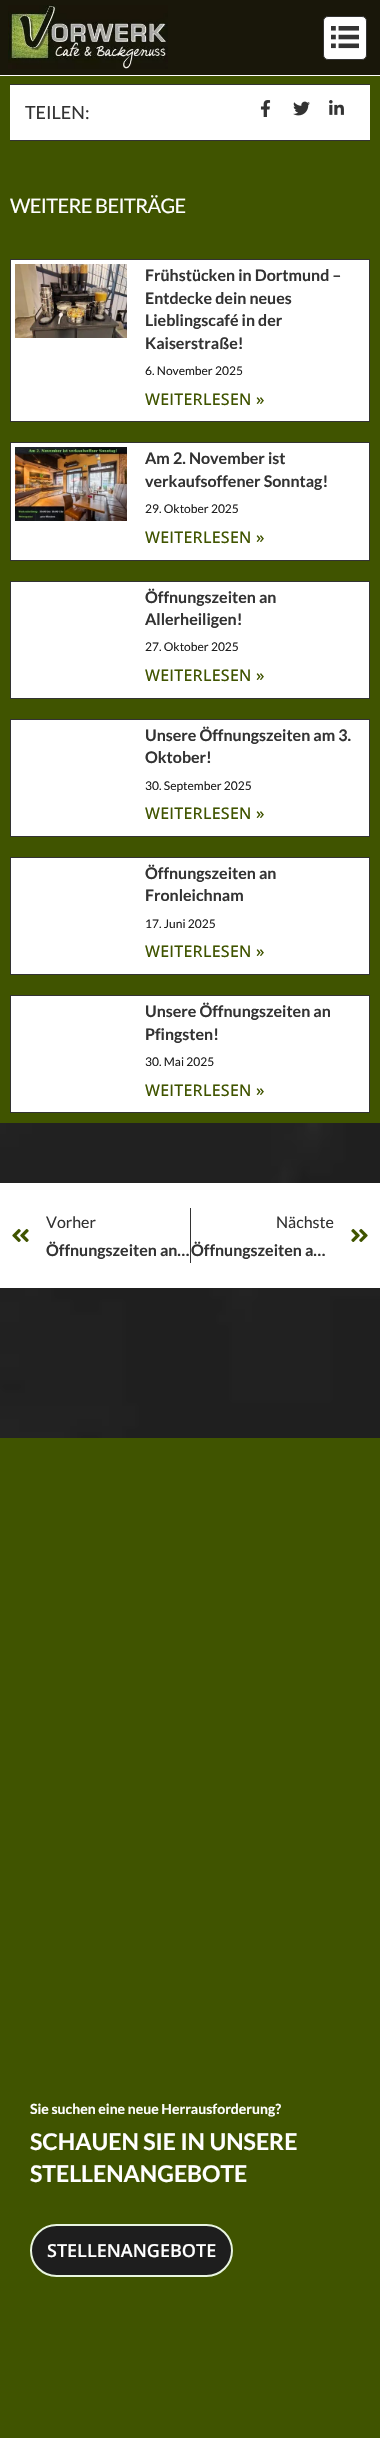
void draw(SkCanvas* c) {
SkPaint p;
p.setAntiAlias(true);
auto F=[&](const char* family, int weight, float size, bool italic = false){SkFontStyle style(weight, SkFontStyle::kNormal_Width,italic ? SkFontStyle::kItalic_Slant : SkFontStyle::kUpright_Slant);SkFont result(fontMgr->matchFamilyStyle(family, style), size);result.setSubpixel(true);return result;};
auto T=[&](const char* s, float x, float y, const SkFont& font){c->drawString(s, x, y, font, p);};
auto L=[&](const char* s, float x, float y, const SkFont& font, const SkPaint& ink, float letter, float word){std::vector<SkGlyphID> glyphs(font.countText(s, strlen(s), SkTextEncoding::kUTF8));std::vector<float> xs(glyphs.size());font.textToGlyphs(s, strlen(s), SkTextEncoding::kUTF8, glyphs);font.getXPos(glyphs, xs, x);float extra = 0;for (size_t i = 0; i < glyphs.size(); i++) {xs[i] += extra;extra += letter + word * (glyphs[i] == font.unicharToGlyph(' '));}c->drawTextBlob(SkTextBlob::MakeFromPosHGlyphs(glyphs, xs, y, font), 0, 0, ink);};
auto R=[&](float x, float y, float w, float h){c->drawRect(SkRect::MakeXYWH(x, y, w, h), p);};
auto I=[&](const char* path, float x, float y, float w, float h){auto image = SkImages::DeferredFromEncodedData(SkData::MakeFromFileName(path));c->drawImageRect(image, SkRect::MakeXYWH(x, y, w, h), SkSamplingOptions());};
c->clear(0xffffffff);
I("1.png",0,1123,380,315);
p.setColor(0xff19170a);
R(0,0,380,75);
I("2.png",8,5,160,64);
p.setColor(0xffffffff);
c->drawRoundRect(SkRect::MakeXYWH(323.5,16.5,43,43),4.5,4.5,p);
p.setStroke(true);
p.setStrokeWidth(1);
p.setColor(0xff333333);
c->drawRoundRect(SkRect::MakeXYWH(323.5,16.5,43,43),4.5,4.5,p);
I("3.png",331,26,28,23);
p.setStroke(false);
p.setColor(0xff405400);
R(0,76,380,1047);
p.setColor(0xffffffff);
R(10,85,360,55);
p.setColor(0xff333333);
R(10,84,360,1);
R(10,140,360,1);
auto f1 = F("Lato",400,18);
T("TEILEN:",25,119,f1);
I("4.png",260,100,11,17);
I("5.png",293,101,17,15);
I("6.png",329,100,15,15);
auto f2 = F("Lato",400,20);
p.setColor(0xffffffff);
L("WEITERE BEITRÄGE",10,213,f2,p,-.6,0);
c->drawRect(SkRect::MakeXYWH(10.5,259.5,359,162),p);
p.setStroke(true);
p.setColor(0xff333333);
c->drawRect(SkRect::MakeXYWH(10.5,259.5,359,162),p);
I("7.png",15,264,112,74);
auto f3 = F("Lato",700,16);
p.setStroke(false);
T("Frühstücken in Dortmund –",145,281,f3);
T("Entdecke dein neues",145,304,f3);
T("Lieblingscafé in der",145,326,f3);
T("Kaiserstraße!",145,349,f3);
auto f4 = F("Lato",400,12);
p.setColor(0xff1e1e1e);
T("6. November 2025",145,375,f4);
auto f5 = F("Open Sans",500,16);
p.setColor(0xff405400);
L("WEITERLESEN »",145,405,f5,p,.25,0);
p.setColor(0xffffffff);
c->drawRect(SkRect::MakeXYWH(10.5,442.5,359,118),p);
p.setStroke(true);
p.setColor(0xff333333);
c->drawRect(SkRect::MakeXYWH(10.5,442.5,359,118),p);
I("8.png",15,447,112,74);
p.setStroke(false);
T("Am 2. November ist",145,464,f3);
T("verkaufsoffener Sonntag!",145,487,f3);
p.setColor(0xff1e1e1e);
T("29. Oktober 2025",145,513,f4);
p.setColor(0xff405400);
L("WEITERLESEN »",145,543,f5,p,.25,0);
p.setColor(0xffffffff);
c->drawRect(SkRect::MakeXYWH(10.5,581.5,359,117),p);
p.setStroke(true);
p.setColor(0xff333333);
c->drawRect(SkRect::MakeXYWH(10.5,581.5,359,117),p);
p.setStroke(false);
T("Öffnungszeiten an",145,603,f3);
T("Allerheiligen!",145,625,f3);
p.setColor(0xff1e1e1e);
T("27. Oktober 2025",145,651,f4);
p.setColor(0xff405400);
L("WEITERLESEN »",145,681,f5,p,.25,0);
p.setColor(0xffffffff);
c->drawRect(SkRect::MakeXYWH(10.5,719.5,359,117),p);
p.setStroke(true);
p.setColor(0xff333333);
c->drawRect(SkRect::MakeXYWH(10.5,719.5,359,117),p);
p.setStroke(false);
T("Unsere Öffnungszeiten am 3.",145,741,f3);
T("Oktober!",145,763,f3);
p.setColor(0xff1e1e1e);
T("30. September 2025",145,790,f4);
p.setColor(0xff405400);
L("WEITERLESEN »",145,819,f5,p,.25,0);
p.setColor(0xffffffff);
c->drawRect(SkRect::MakeXYWH(10.5,857.5,359,117),p);
p.setStroke(true);
p.setColor(0xff333333);
c->drawRect(SkRect::MakeXYWH(10.5,857.5,359,117),p);
p.setStroke(false);
T("Öffnungszeiten an",145,879,f3);
T("Fronleichnam",145,901,f3);
p.setColor(0xff1e1e1e);
T("17. Juni 2025",145,928,f4);
p.setColor(0xff405400);
L("WEITERLESEN »",145,957,f5,p,.25,0);
p.setColor(0xffffffff);
c->drawRect(SkRect::MakeXYWH(10.5,995.5,359,117),p);
p.setStroke(true);
p.setColor(0xff333333);
c->drawRect(SkRect::MakeXYWH(10.5,995.5,359,117),p);
p.setStroke(false);
T("Unsere Öffnungszeiten an",145,1017,f3);
T("Pfingsten!",145,1040,f3);
p.setColor(0xff1e1e1e);
T("30. Mai 2025",145,1066,f4);
p.setColor(0xff405400);
L("WEITERLESEN »",145,1096,f5,p,.25,0);
p.setColor(0xffffffff);
R(0,1183,380,105);
I("9.png",12,1228,17,14);
auto f6 = F("Lato",400,16);
p.setColor(0xff333333);
T("Vorher",46,1228,f6);
T("Öffnungszeiten an…",46,1256,f3);
R(190,1208,1,55);
T("Nächste",276,1228,f6);
T("Öffnungszeiten a…",191,1256,f3);
I("10.png",351,1228,17,14);
p.setColor(0xff405400);
R(0,1438,380,1000);
auto f7 = F("Lato",700,14);
p.setColor(0xffffffff);
T("Sie suchen eine neue Herrausforderung?",30,2114,f7);
auto f8 = F("Lato",700,23);
T("SCHAUEN SIE IN UNSERE",30,2150,f8);
T("STELLENANGEBOTE",30,2182,f8);
p.setColor(0xff1e1e1e);
c->drawRoundRect(SkRect::MakeXYWH(31,2225,201,51),25.5,25.5,p);
p.setStroke(true);
p.setStrokeWidth(2);
p.setColor(0xffe9f5e0);
c->drawRoundRect(SkRect::MakeXYWH(31,2225,201,51),25.5,25.5,p);
auto f9 = F("Open Sans",600,18);
p.setStroke(false);
p.setColor(0xffffffff);
T("STELLENANGEBOTE",47,2257,f9);
}
